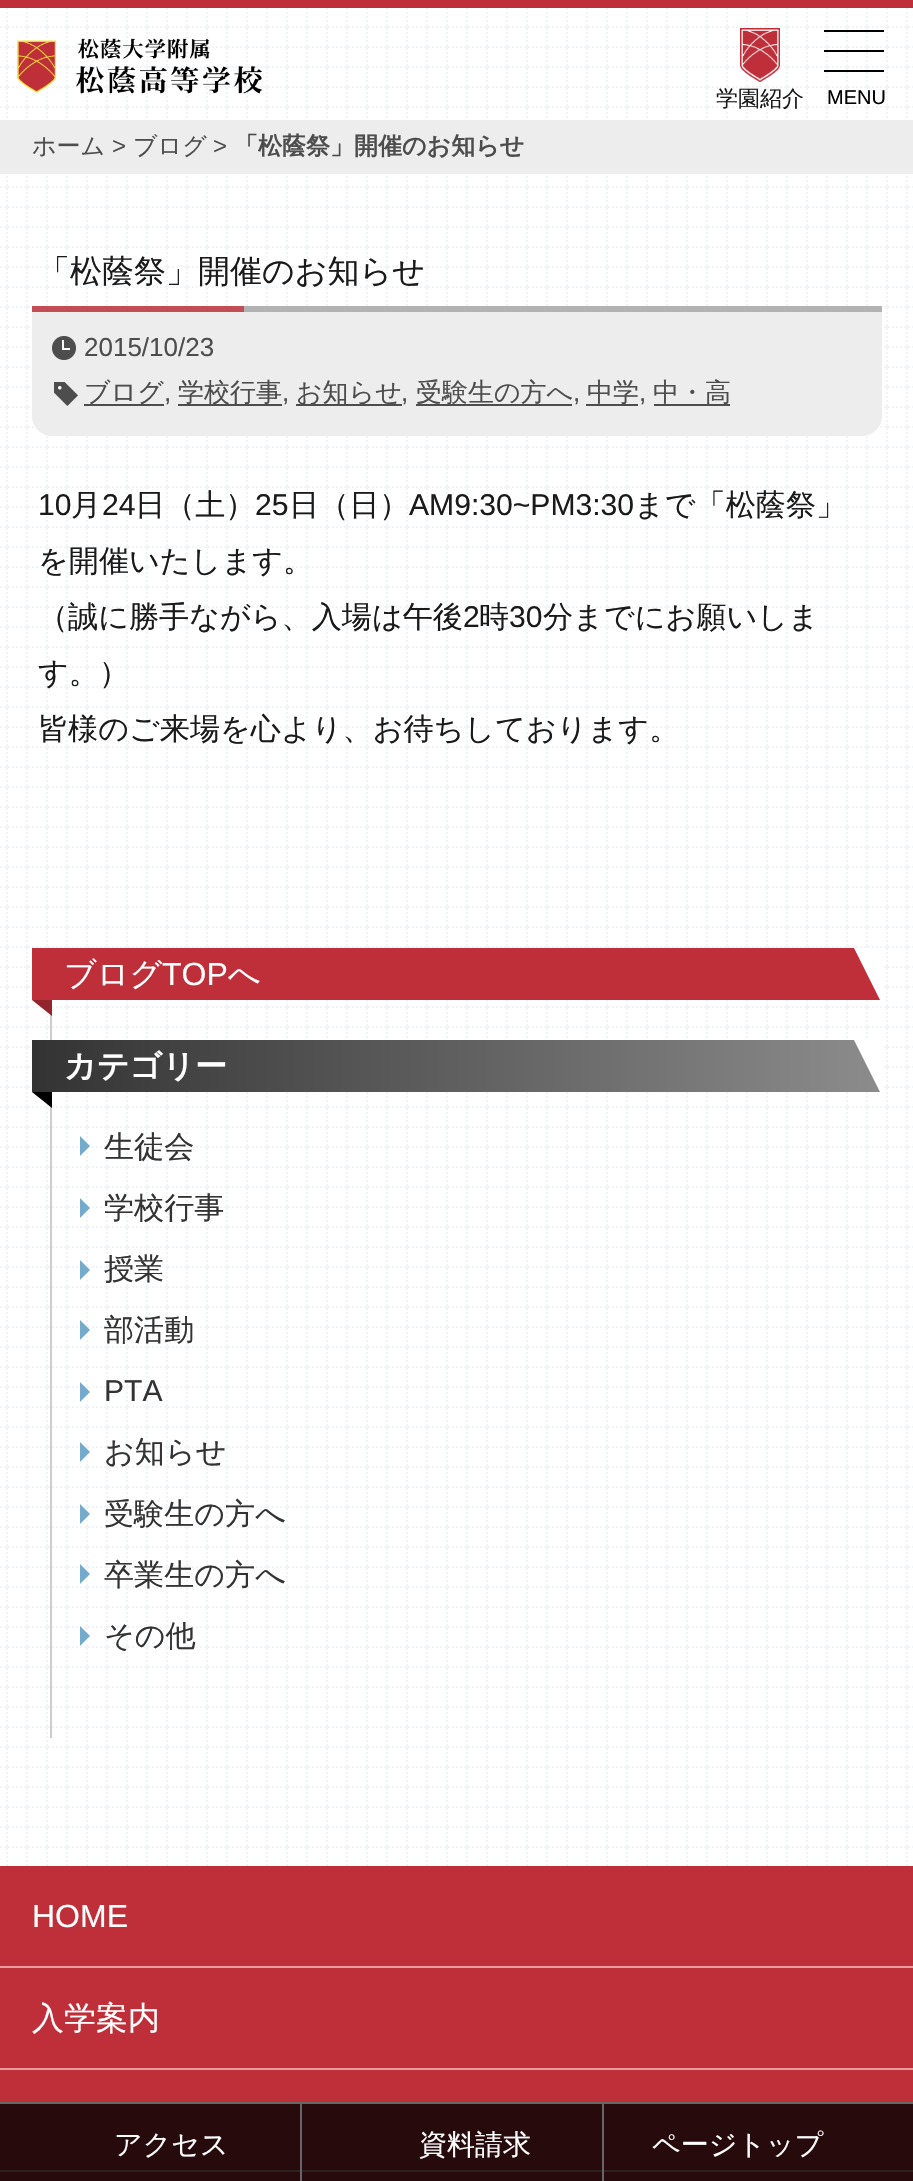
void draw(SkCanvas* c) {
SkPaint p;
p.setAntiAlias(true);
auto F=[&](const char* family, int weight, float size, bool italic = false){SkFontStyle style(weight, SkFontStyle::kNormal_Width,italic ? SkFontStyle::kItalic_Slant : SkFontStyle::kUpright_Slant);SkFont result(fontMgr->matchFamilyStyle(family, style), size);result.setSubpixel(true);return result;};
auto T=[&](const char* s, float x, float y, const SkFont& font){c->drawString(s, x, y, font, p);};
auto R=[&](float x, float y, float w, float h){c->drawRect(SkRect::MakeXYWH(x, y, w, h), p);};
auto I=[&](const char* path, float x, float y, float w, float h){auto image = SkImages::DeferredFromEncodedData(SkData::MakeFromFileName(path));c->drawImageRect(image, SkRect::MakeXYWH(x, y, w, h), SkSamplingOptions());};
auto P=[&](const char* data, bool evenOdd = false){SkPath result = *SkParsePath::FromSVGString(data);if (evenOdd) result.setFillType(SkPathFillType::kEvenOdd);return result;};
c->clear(0xffffffff);
I("1.png",0,8,913,1858);
p.setColor(0xffbe2f3a);
R(0,0,913,8);
I("2.png",16,38,246,56);
I("3.png",740,28,40,54);
auto f1 = F("WenQuanYi Zen Hei",500,22);
p.setColor(0xff1a1a1a);
T("学園紹介",716,106,f1);
p.setColor(0xff000000);
R(824,30,60,2);
R(824,50,60,2);
R(824,70,60,2);
auto f2 = F("Liberation Sans",400,20);
T("MENU",827,104,f2);
p.setColor(0xffbe2f3a);
R(0,1866,913,315);
p.setColor(0xffe89d9d);
R(0,1966,913,2);
auto f3 = F("Liberation Sans",400,32);
p.setColor(0xffffffff);
T("HOME",32,1927,f3);
p.setColor(0xffe89d9d);
R(0,2068,913,2);
auto f4 = F("WenQuanYi Zen Hei",500,32);
p.setColor(0xffffffff);
T("入学案内",32,2029,f4);
p.setColor(0xffe89d9d);
R(0,2170,913,2);
p.setColor(0xff666666);
R(0,2102,913,2);
R(300,2102,2,79);
p.setColor(0xcc000000);
R(0,2104,300,77);
auto f5 = F("WenQuanYi Zen Hei",500,28);
p.setColor(0xffffffff);
T("アクセス",114,2154,f5);
p.setColor(0xff666666);
R(602,2102,2,79);
p.setColor(0xcc000000);
R(302,2104,300,77);
p.setColor(0xffffffff);
T("資料請求",419,2154,f5);
p.setColor(0xcc000000);
R(604,2104,309,77);
p.setColor(0xffffffff);
T("ページトップ",652,2154,f5);
p.setColor(0xffededed);
R(0,120,913,54);
auto f6 = F("WenQuanYi Zen Hei",500,24);
p.setColor(0xff4d4d4d);
T("ホーム",32,154,f6);
auto f7 = F("Liberation Sans",400,24);
T(">",112,154,f7);
T("ブログ",133,154,f6);
T(">",213,154,f7);
auto f8 = F("WenQuanYi Zen Hei",700,24);
T("「松蔭祭」開催のお知らせ",234,154,f8);
p.setColor(0xffb2b2b2);
R(244,306,638,6);
p.setColor(0xff1a1a1a);
T("「松蔭祭」開催のお知らせ",38,282,f4);
p.setColor(0xffc24d57);
R(32,306,212,6);
p.setColor(0xffededed);
c->drawPath(P("M32 312h850v104c0 11-9 20-20 20h-810c-11 0-20-9-20-20z"),p);
I("4.png",52,336,24,24);
auto f9 = F("Liberation Sans",400,26);
p.setColor(0xff4d4d4d);
T("2015/10/23",84,356,f9);
I("5.png",54,382,24,24);
R(84,404,80,2);
auto f10 = F("WenQuanYi Zen Hei",500,26);
T("ブログ",84,401,f10);
T(",",164,401,f9);
R(178,404,104,2);
T("学校行事",178,401,f10);
T(",",282,401,f9);
R(296,404,106,2);
T("お知らせ",296,401,f10);
T(",",401,401,f9);
R(416,404,156,2);
T("受験生の方へ",416,401,f10);
T(",",573,401,f9);
R(586,404,52,2);
T("中学",587,401,f10);
T(",",639,401,f9);
R(654,404,76,2);
T("中・高",653,401,f10);
auto f11 = F("Liberation Sans",400,30.1);
p.setColor(0xff1a1a1a);
T("10",38,515,f11);
auto f12 = F("WenQuanYi Zen Hei",500,30.1);
T("月",71,515,f12);
T("24",102,515,f11);
T("日（土）",135,515,f12);
T("25",255,515,f11);
T("日（日）",289,515,f12);
T("AM9:30~PM3:30",409,515,f11);
T("まで「松蔭祭」",634,515,f12);
T("を開催いたします。",38,571,f12);
T("（誠に勝手ながら、入場は午後",38,627,f12);
T("2",463,627,f11);
T("時",479,627,f12);
T("30",509,627,f11);
T("分までにお願いしま",543,627,f12);
T("す。）",38,683,f12);
T("皆様のご来場を心より、お待ちしております。",38,739,f12);
p.setColor(0xffbe2f3a);
R(32,948,848,52);
p.setColor(0xffffffff);
T("ブログ",64,985,f4);
T("TOP",162,985,f3);
T("へ",228,985,f4);
c->drawPath(P("M854 948h30v60z"),p);
p.setColor(0xffcccccc);
R(50,1014,2,724);
p.setColor(0xff92242d);
c->drawPath(P("M52 1000v16l-20-16z"),p);
{
const SkColor colors[] = {0xff333333,0xff8c8c8c};
const float stops[] = {0,1};
const SkPoint ends[] = {{32,1066}, {882,1066}};
p.setShader(SkGradientShader::MakeLinear(ends, colors, stops, 2, SkTileMode::kClamp));
p.setAlpha(255);
}
R(32,1040,848,52);
auto f13 = F("WenQuanYi Zen Hei",700,32);
p.setShader(nullptr);
p.setColor(0xffffffff);
T("カテゴリー",64,1077,f13);
c->drawPath(P("M854 1040h30v60z"),p);
p.setColor(0xff000000);
c->drawPath(P("M52 1092v16l-20-16z"),p);
p.setColor(0xff74abcc);
c->drawPath(P("M80 1156v-20l10 10z"),p);
p.setColor(0xff333333);
T("生徒会",104,1157,f12);
p.setColor(0xff74abcc);
c->drawPath(P("M80 1218v-20l10 10z"),p);
p.setColor(0xff333333);
T("学校行事",104,1218,f12);
p.setColor(0xff74abcc);
c->drawPath(P("M80 1280v-20l10 10z"),p);
p.setColor(0xff333333);
T("授業",104,1279,f12);
p.setColor(0xff74abcc);
c->drawPath(P("M80 1340v-20l10 10z"),p);
p.setColor(0xff333333);
T("部活動",104,1340,f12);
p.setColor(0xff74abcc);
c->drawPath(P("M80 1402v-20l10 10z"),p);
p.setColor(0xff333333);
T("PTA",104,1401,f11);
p.setColor(0xff74abcc);
c->drawPath(P("M80 1462v-20l10 10z"),p);
p.setColor(0xff333333);
T("お知らせ",104,1462,f12);
p.setColor(0xff74abcc);
c->drawPath(P("M80 1524v-20l10 10z"),p);
p.setColor(0xff333333);
T("受験生の方へ",104,1524,f12);
p.setColor(0xff74abcc);
c->drawPath(P("M80 1584v-20l10 10z"),p);
p.setColor(0xff333333);
T("卒業生の方へ",104,1585,f12);
p.setColor(0xff74abcc);
c->drawPath(P("M80 1646v-20l10 10z"),p);
p.setColor(0xff333333);
T("その他",104,1646,f12);
}
